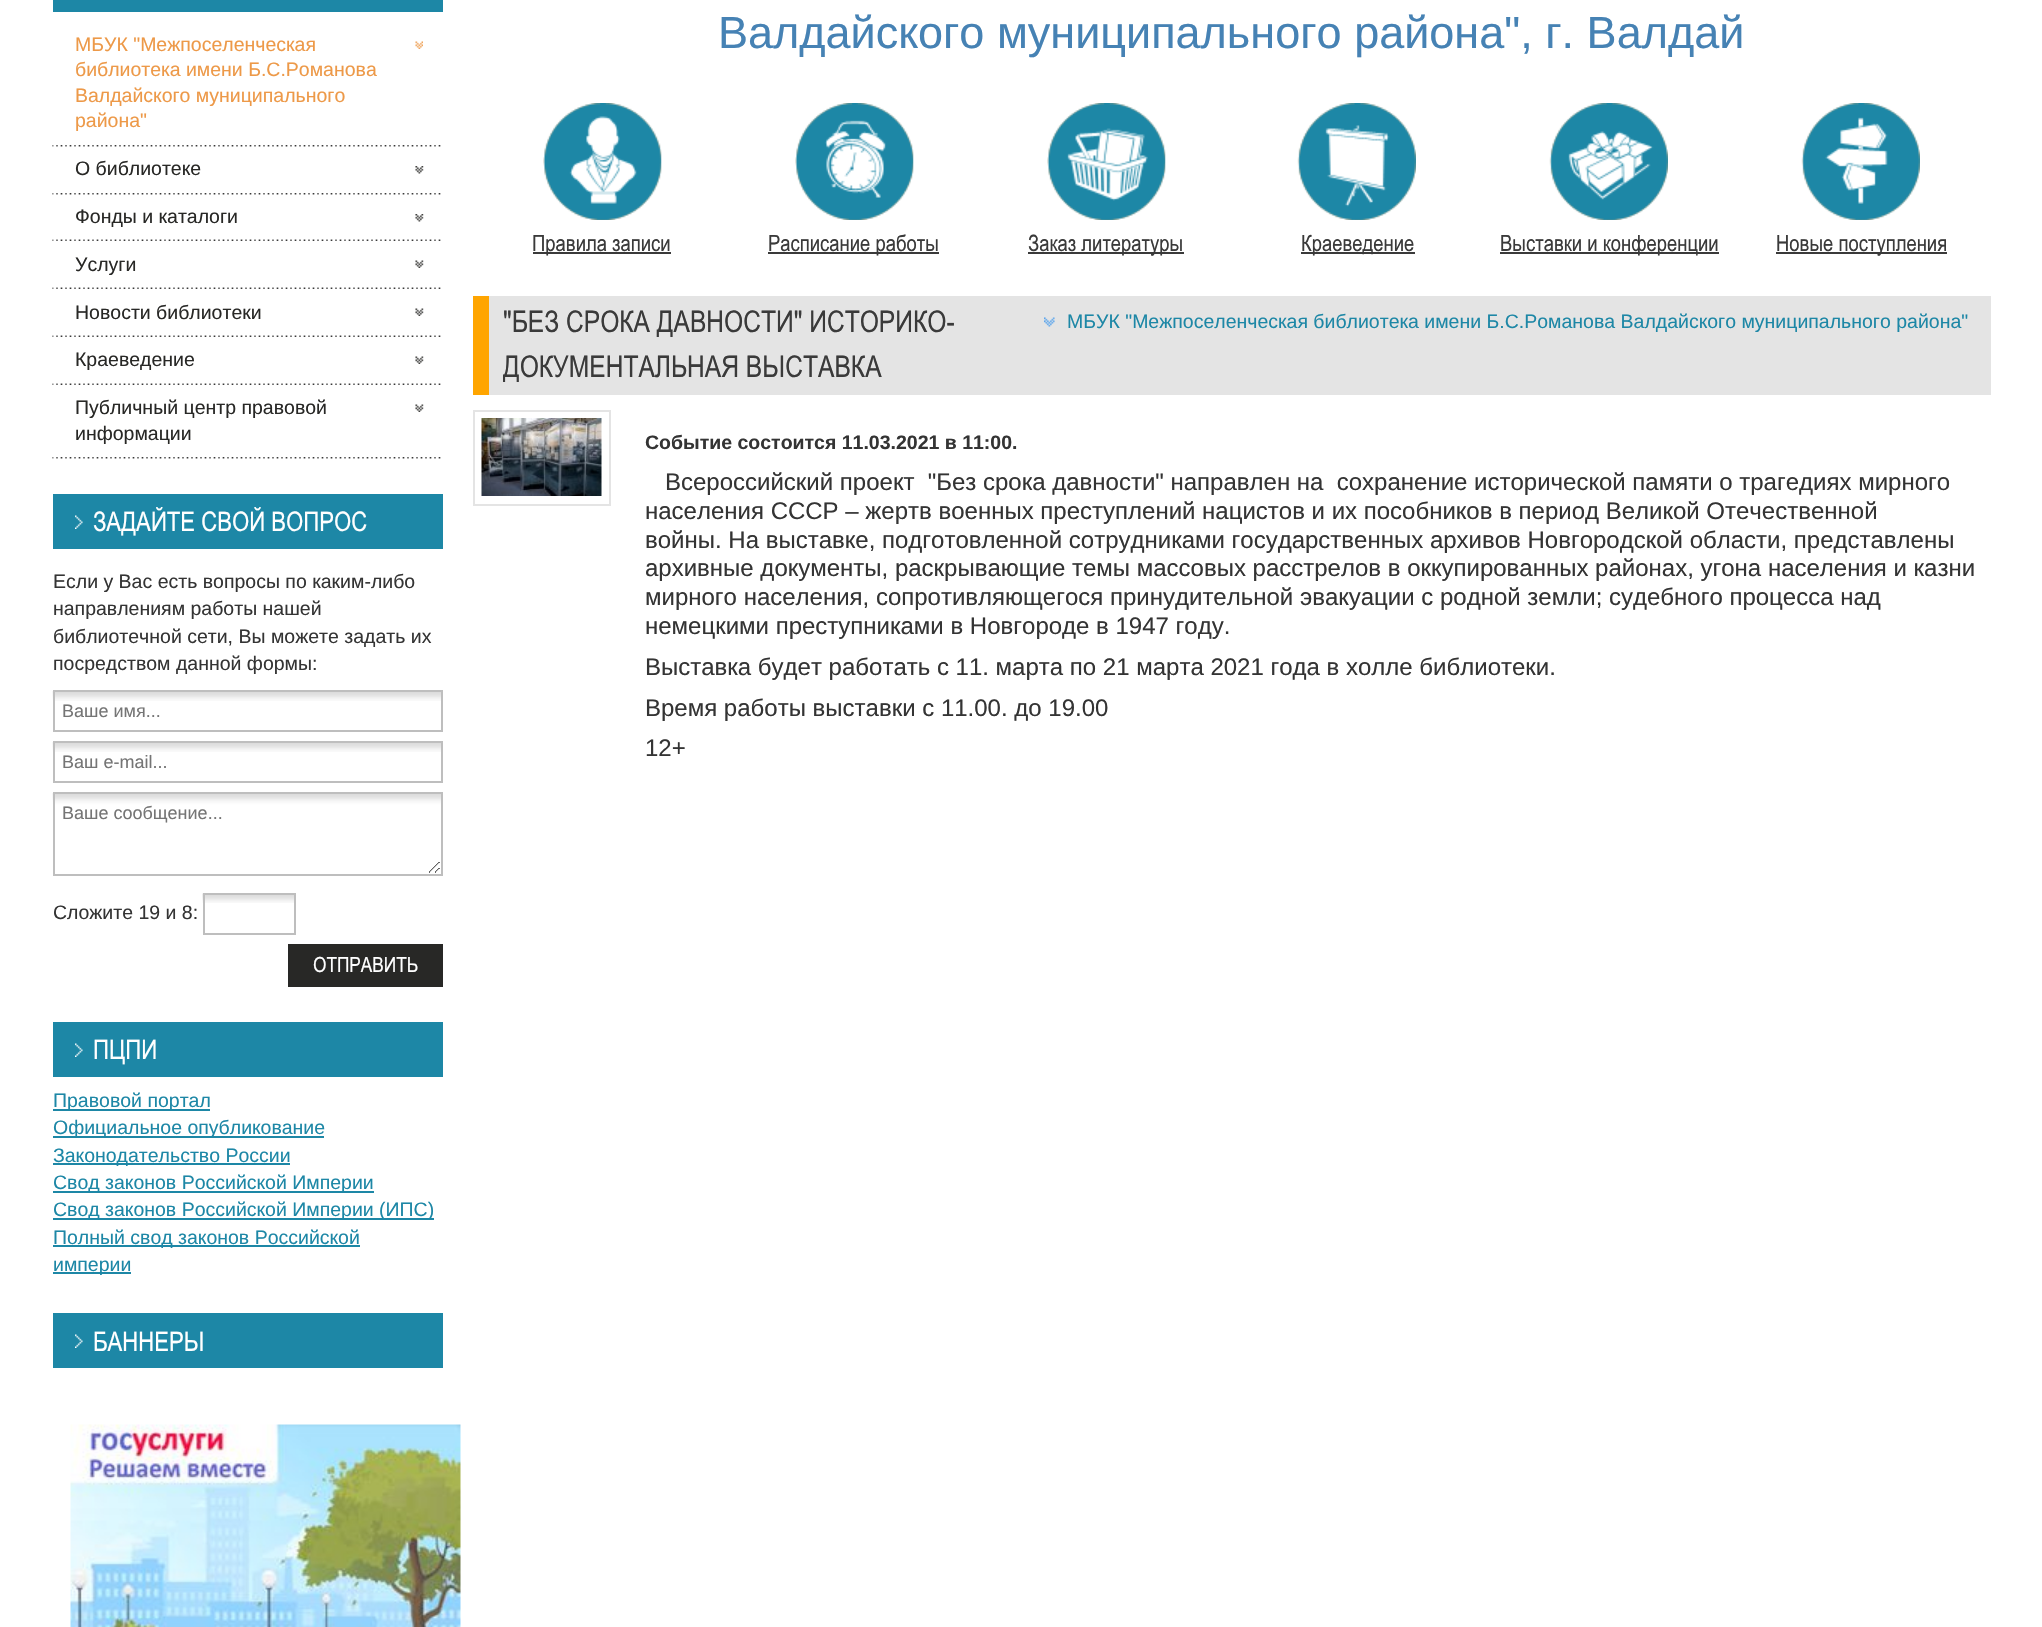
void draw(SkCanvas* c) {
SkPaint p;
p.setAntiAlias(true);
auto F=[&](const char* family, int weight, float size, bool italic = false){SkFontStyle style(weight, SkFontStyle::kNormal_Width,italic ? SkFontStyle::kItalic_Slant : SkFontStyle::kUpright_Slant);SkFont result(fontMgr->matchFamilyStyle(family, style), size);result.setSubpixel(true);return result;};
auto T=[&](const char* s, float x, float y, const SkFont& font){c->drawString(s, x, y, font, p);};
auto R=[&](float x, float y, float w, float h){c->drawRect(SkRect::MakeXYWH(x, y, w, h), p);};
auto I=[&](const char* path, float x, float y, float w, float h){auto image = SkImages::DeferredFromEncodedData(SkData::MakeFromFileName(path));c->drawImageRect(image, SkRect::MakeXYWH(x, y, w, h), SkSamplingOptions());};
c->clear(0xffffffff);
p.setColor(0xff1d87a6);
R(53,0,390,12);
I("1.png",52,145,389,2);
I("2.png",415,41,8,8);
auto f1 = F("Liberation Sans",400,19.5);
p.setColor(0xffed9948);
T("МБУК \"Межпоселенческая",75,51,f1);
T("библиотека имени Б.С.Романова",75,76,f1);
T("Валдайского муниципального",75,102,f1);
T("района\"",75,127,f1);
I("1.png",52,193,389,2);
I("3.png",415,166,9,8);
p.setColor(0xff282826);
T("О библиотеке",75,175,f1);
I("4.png",52,239,389,2);
I("3.png",415,214,9,8);
T("Фонды и каталоги",75,223,f1);
I("4.png",52,287,389,2);
I("5.png",415,260,9,8);
T("Услуги",75,271,f1);
I("4.png",52,335,389,2);
I("5.png",415,308,9,8);
T("Новости библиотеки",75,319,f1);
I("4.png",52,383,389,2);
I("5.png",415,356,9,8);
T("Краеведение",75,366,f1);
I("1.png",52,457,389,2);
I("5.png",415,404,9,8);
T("Публичный центр правовой",75,414,f1);
T("информации",75,440,f1);
p.setColor(0xff1d87a6);
R(53,494,390,55);
I("6.png",75,515,8,14);
auto f2 = F("Arial",400,27);
p.setColor(0xffffffff);
T("ЗАДАЙТЕ СВОЙ ВОПРОС",93,531,f2);
p.setColor(0xff343434);
T("Если у Вас есть вопросы по каким-либо",53,588,f1);
T("направлениям работы нашей",53,615,f1);
T("библиотечной сети, Вы можете задать их",53,643,f1);
T("посредством данной формы:",53,670,f1);
I("7.png",52,691,389,10);
p.setStroke(true);
p.setStrokeWidth(2);
p.setColor(0xffbebebe);
c->drawRect(SkRect::MakeXYWH(54,691,388,40),p);
auto f3 = F("Liberation Sans",400,18);
p.setStroke(false);
p.setColor(0xff757575);
T("Ваше имя...",62,717,f3);
I("7.png",52,742,389,10);
p.setStroke(true);
p.setColor(0xffbebebe);
c->drawRect(SkRect::MakeXYWH(54,742,388,40),p);
p.setStroke(false);
p.setColor(0xff757575);
T("Ваш e-mail...",62,768,f3);
I("8.png",52,793,389,80);
p.setStroke(true);
p.setColor(0xffbebebe);
c->drawRect(SkRect::MakeXYWH(54,793,388,82),p);
p.setStroke(false);
p.setColor(0xff757575);
T("Ваше сообщение...",62,819,f3);
p.setColor(0xff343434);
T("Сложите 19 и 8:",53,919,f1);
I("9.png",202,893,92,10);
p.setStroke(true);
p.setColor(0xffbebebe);
c->drawRect(SkRect::MakeXYWH(204,894,91,40),p);
p.setStroke(false);
p.setColor(0xff282826);
R(288,944,155,43);
auto f4 = F("Arial",400,21);
p.setColor(0xffffffff);
T("ОТПРАВИТЬ",313,972,f4);
p.setColor(0xff1d87a6);
R(53,1022,390,55);
I("6.png",75,1043,8,14);
p.setColor(0xffffffff);
T("ПЦПИ",93,1059,f2);
p.setColor(0xff1d87a6);
R(53,1109,157,2);
T("Правовой портал",53,1107,f1);
R(53,1136,271,2);
T("Официальное опубликование",53,1134,f1);
R(53,1163,237,2);
T("Законодательство России",53,1162,f1);
R(53,1191,321,2);
T("Свод законов Российской Империи",53,1189,f1);
R(53,1218,381,2);
T("Свод законов Российской Империи (ИПС)",53,1216,f1);
R(53,1245,307,2);
T("Полный свод законов Российской",53,1244,f1);
R(53,1272,78,2);
T("империи",53,1271,f1);
R(53,1313,390,55);
I("6.png",75,1334,8,14);
p.setColor(0xffffffff);
T("БАННЕРЫ",93,1351,f2);
I("10.png",70,1424,391,203);
auto f5 = F("Liberation Sans",400,45);
p.setColor(0xff4682b4);
T("Валдайского муниципального района\", г. Валдай",718,48,f5);
I("11.png",543,103,119,117);
p.setColor(0xff3a3a3a);
R(533,252,138,2);
auto f6 = F("Arial",400,22.5);
T("Правила записи",532,251,f6);
I("12.png",795,103,119,117);
R(768,252,171,2);
T("Расписание работы",768,251,f6);
I("13.png",1047,103,119,117);
R(1028,252,156,2);
T("Заказ литературы",1028,251,f6);
I("14.png",1297,103,119,117);
R(1301,252,114,2);
T("Краеведение",1301,251,f6);
I("15.png",1549,103,119,117);
R(1500,252,219,2);
T("Выставки и конференции",1500,251,f6);
I("16.png",1801,103,119,117);
R(1776,252,171,2);
T("Новые поступления",1776,251,f6);
p.setColor(0xffe4e4e4);
R(489,296,1502,99);
p.setColor(0xffffa500);
R(473,296,16,99);
auto f7 = F("Arial",400,30);
p.setColor(0xff3a3a3a);
T("\"БЕЗ СРОКА ДАВНОСТИ\" ИСТОРИКО-",503,332,f7);
I("17.png",1044,317,11,10);
p.setColor(0xff1d87a6);
T("МБУК \"Межпоселенческая библиотека имени Б.С.Романова Валдайского муниципального района\"",1067,328,f1);
p.setColor(0xff3a3a3a);
T("ДОКУМЕНТАЛЬНАЯ ВЫСТАВКА",503,377,f7);
p.setStroke(true);
p.setColor(0xffe4e4e4);
c->drawRect(SkRect::MakeXYWH(474,411,136,94),p);
I("18.png",481,418,121,78);
auto f8 = F("Liberation Sans",700,19.5);
p.setStroke(false);
p.setColor(0xff343434);
T("Событие состоится 11.03.2021 в 11:00.",645,449,f8);
auto f9 = F("Liberation Sans",400,24);
T("Всероссийский проект  \"Без срока давности\" направлен на  сохранение исторической памяти о трагедиях мирного",665,490,f9);
T("населения СССР – жертв военных преступлений нацистов и их пособников в период Великой Отечественной",645,519,f9);
T("войны. На выставке, подготовленной сотрудниками государственных архивов Новгородской области, представлены",645,548,f9);
T("архивные документы, раскрывающие темы массовых расстрелов в оккупированных районах, угона населения и казни",645,576,f9);
T("мирного населения, сопротивляющегося принудительной эвакуации с родной земли; судебного процесса над",645,605,f9);
T("немецкими преступниками в Новгороде в 1947 году.",645,634,f9);
T("Выставка будет работать с 11. марта по 21 марта 2021 года в холле библиотеки.",645,675,f9);
T("Время работы выставки с 11.00. до 19.00",645,716,f9);
T("12+",645,756,f9);
}
